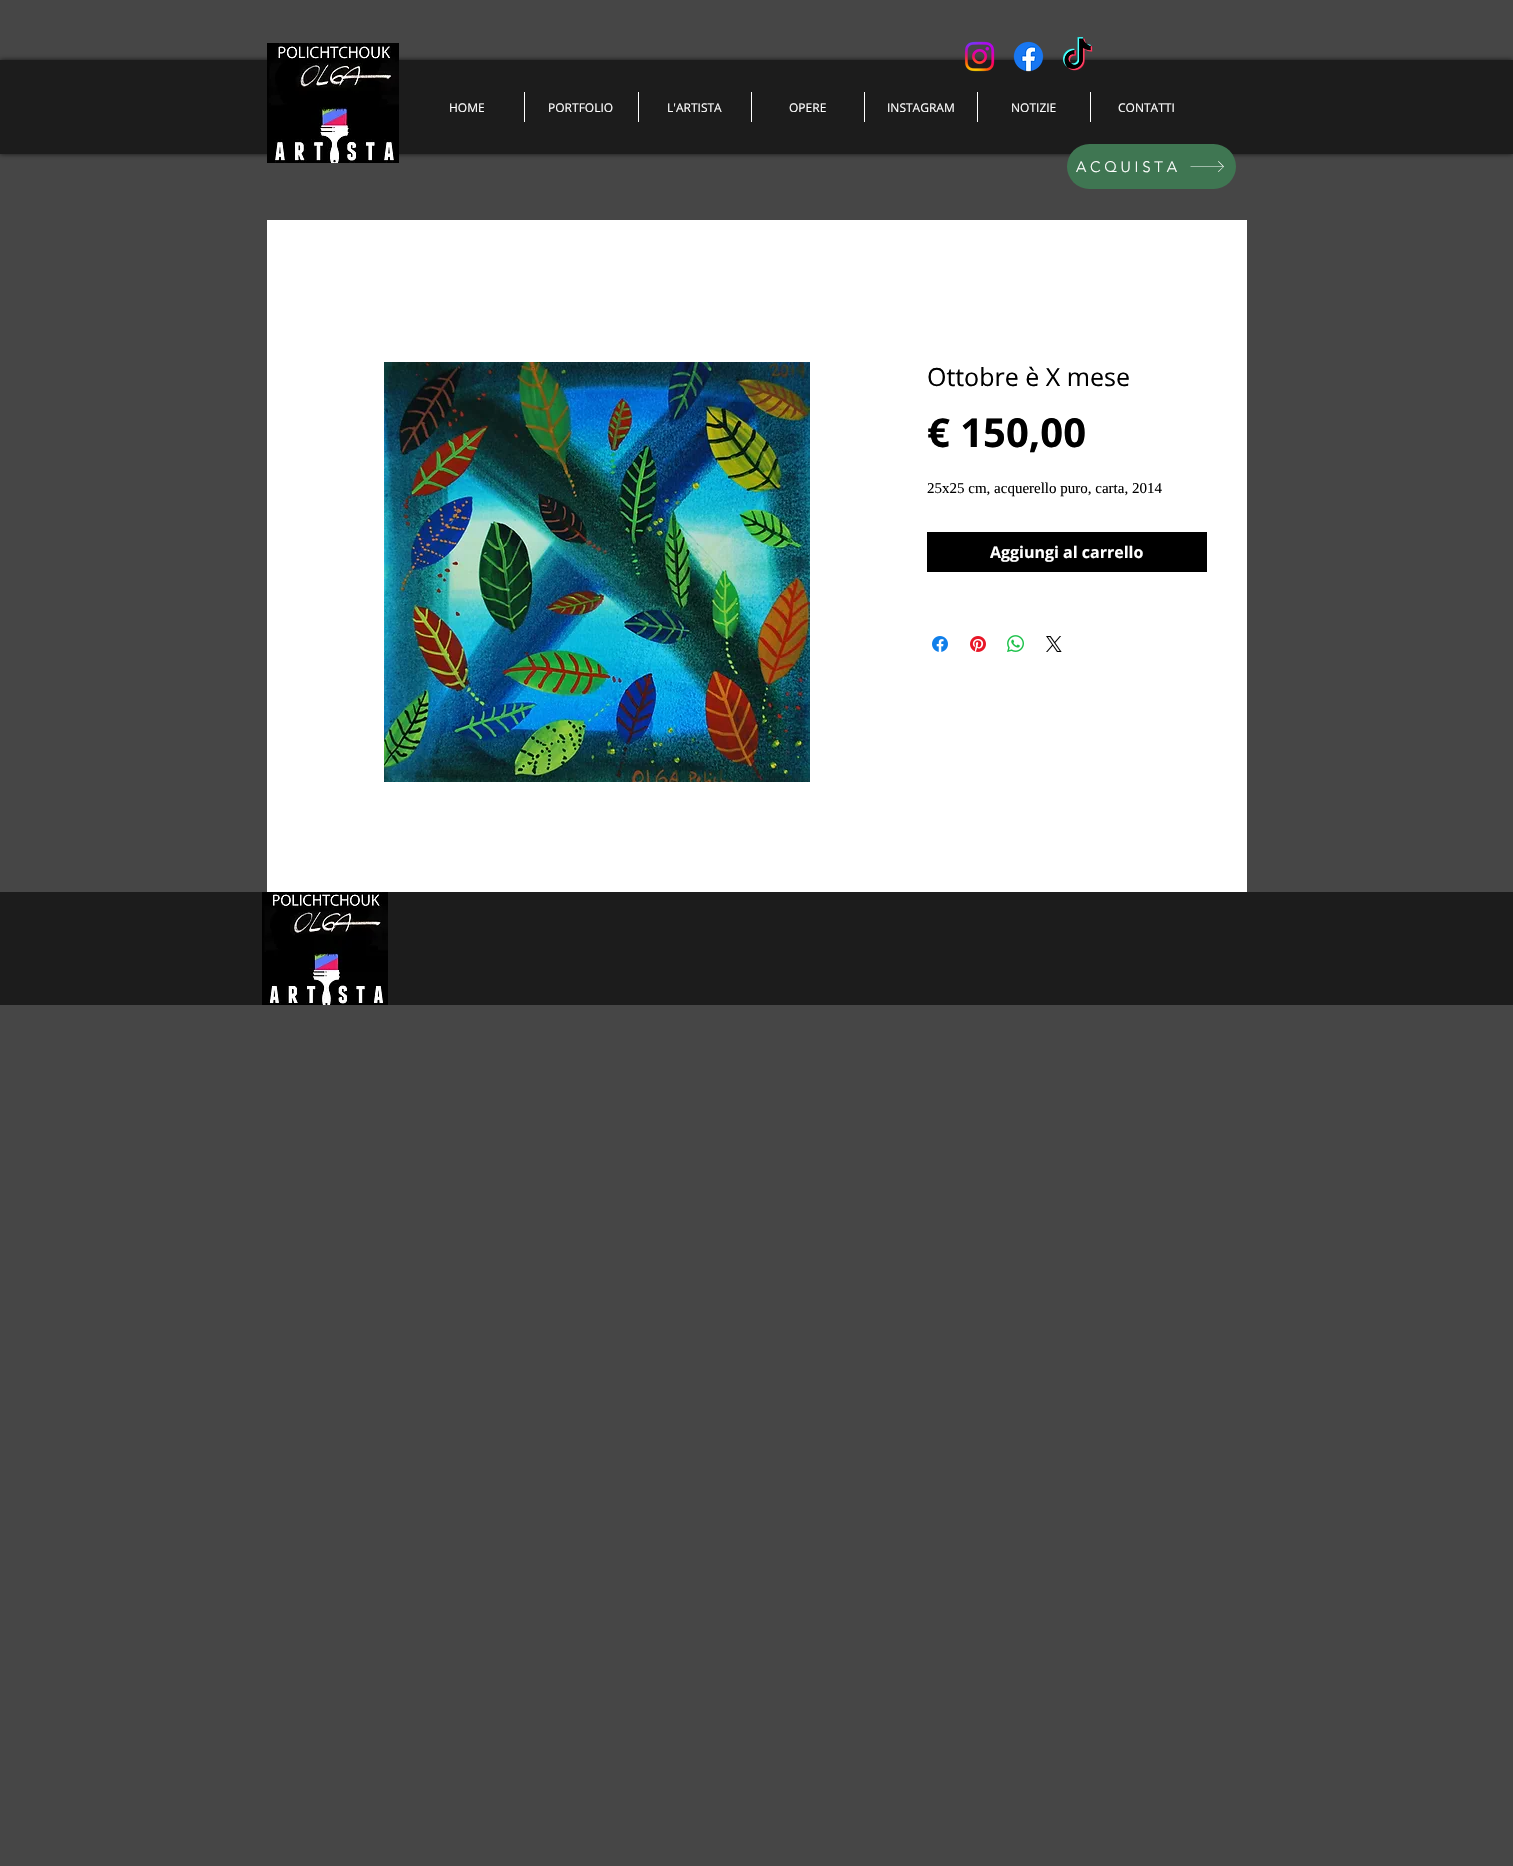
void draw(SkCanvas* c) {
SkPaint p;
p.setAntiAlias(true);
auto F=[&](const char* family, int weight, float size, bool italic = false){SkFontStyle style(weight, SkFontStyle::kNormal_Width,italic ? SkFontStyle::kItalic_Slant : SkFontStyle::kUpright_Slant);SkFont result(fontMgr->matchFamilyStyle(family, style), size);result.setSubpixel(true);return result;};
auto T=[&](const char* s, float x, float y, const SkFont& font){c->drawString(s, x, y, font, p);};
auto L=[&](const char* s, float x, float y, const SkFont& font, const SkPaint& ink, float letter, float word){std::vector<SkGlyphID> glyphs(font.countText(s, strlen(s), SkTextEncoding::kUTF8));std::vector<float> xs(glyphs.size());font.textToGlyphs(s, strlen(s), SkTextEncoding::kUTF8, glyphs);font.getXPos(glyphs, xs, x);float extra = 0;for (size_t i = 0; i < glyphs.size(); i++) {xs[i] += extra;extra += letter + word * (glyphs[i] == font.unicharToGlyph(' '));}c->drawTextBlob(SkTextBlob::MakeFromPosHGlyphs(glyphs, xs, y, font), 0, 0, ink);};
auto R=[&](float x, float y, float w, float h){c->drawRect(SkRect::MakeXYWH(x, y, w, h), p);};
auto Q=[&](float x, float y, float w, float h, float radius){c->drawRoundRect(SkRect::MakeXYWH(x, y, w, h), radius, radius, p);};
auto I=[&](const char* path, float x, float y, float w, float h){auto image = SkImages::DeferredFromEncodedData(SkData::MakeFromFileName(path));c->drawImageRect(image, SkRect::MakeXYWH(x, y, w, h), SkSamplingOptions());};
auto P=[&](const char* data, bool evenOdd = false){SkPath result = *SkParsePath::FromSVGString(data);if (evenOdd) result.setFillType(SkPathFillType::kEvenOdd);return result;};
c->clear(0xff464646);
p.setColor(0xb3000000);
p.setMaskFilter(SkMaskFilter::MakeBlur(kNormal_SkBlurStyle, 2.5));
c->drawRect(SkRect::MakeXYWH(0,60,1513,94),p);
p.setMaskFilter(nullptr);
p.setColor(0xff1c1c1c);
R(0,60,1513,94);
I("1.png",267,43,132,120);
I("2.png",964,41,31,31);
I("3.png",1013,41,31,31);
I("4.png",1062,37,31,34);
auto f1 = F("Open Sans",400,12);
p.setColor(0xffffffff);
T("HOME",449,112,f1);
R(524,92,1,30);
T("PORTFOLIO",548,112,f1);
R(638,92,1,30);
T("L'ARTISTA",667,112,f1);
R(751,92,1,30);
T("OPERE",789,112,f1);
R(864,92,1,30);
T("INSTAGRAM",887,112,f1);
R(977,92,1,30);
T("NOTIZIE",1011,112,f1);
R(1090,92,1,30);
T("CONTATTI",1118,112,f1);
p.setColor(0xff3f7652);
Q(1067,144,169,45,22.5);
auto f2 = F("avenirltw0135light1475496",300,15);
p.setColor(0xffffffff);
L("ACQUISTA",1076,172,f2,p,3.75,0);
c->drawPath(P("M1218.5 161l-.5 .5l5 5h-32.5v.5h32.5l-5 4.5l.5 .5l5.5-5.5z"),p);
R(267,220,980,672);
I("5.png",384,362,426,420);
auto f3 = F("Open Sans",400,25);
p.setColor(0xff000000);
T("Ottobre è X mese",927,386,f3);
auto f4 = F("Open Sans",700,40);
T("€ 150,00",927,447,f4);
auto f5 = F("Liberation Serif",400,15);
T("25x25 cm, acquerello puro, carta, 2014",927,493,f5);
R(927,532,280,40);
auto f6 = F("Open Sans",700,16);
p.setColor(0xffffffff);
T("Aggiungi al carrello",990,558,f6);
I("6.png",932,636,16,16);
I("7.png",970,636,16,16);
I("8.png",1007,635,17,17);
I("9.png",1046,636,16,16);
p.setColor(0xff1c1c1c);
R(0,892,1513,113);
I("10.png",262,892,126,113);
}
